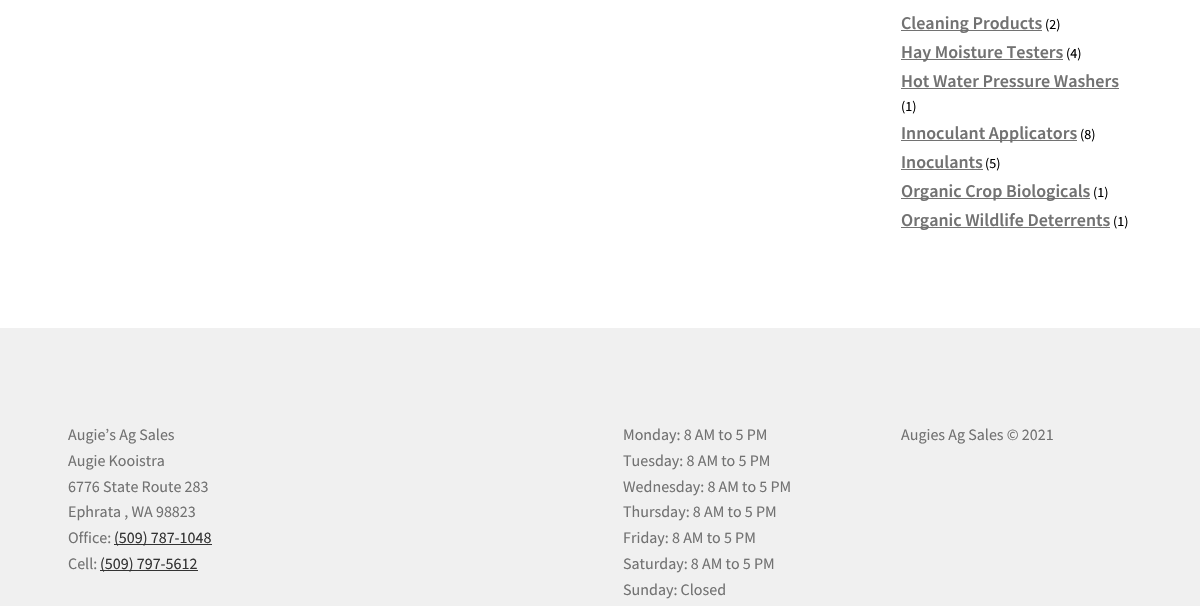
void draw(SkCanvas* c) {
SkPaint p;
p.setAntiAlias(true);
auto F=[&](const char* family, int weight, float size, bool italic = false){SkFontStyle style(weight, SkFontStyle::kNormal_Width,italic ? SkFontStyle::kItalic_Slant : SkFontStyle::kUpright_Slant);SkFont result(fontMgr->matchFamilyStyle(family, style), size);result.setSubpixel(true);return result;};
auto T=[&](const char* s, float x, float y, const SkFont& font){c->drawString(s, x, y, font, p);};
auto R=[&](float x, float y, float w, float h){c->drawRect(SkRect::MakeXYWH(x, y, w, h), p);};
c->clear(0xffffffff);
p.setColor(0xff727272);
R(901,30,141,1);
auto f1 = F("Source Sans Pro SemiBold",600,18);
T("Cleaning Products",901,29,f1);
auto f2 = F("Source Sans Pro",400,14);
p.setColor(0xff000000);
T("(2)",1045,29,f2);
p.setColor(0xff727272);
R(901,59,162,1);
T("Hay Moisture Testers",901,58,f1);
p.setColor(0xff000000);
T("(4)",1066,58,f2);
p.setColor(0xff727272);
T("Hot Water Pressure Washers",901,87,f1);
R(901,88,218,1);
p.setColor(0xff000000);
T("(1)",901,111,f2);
p.setColor(0xff727272);
R(901,140,176,1);
T("Innoculant Applicators",901,139,f1);
p.setColor(0xff000000);
T("(8)",1080,139,f2);
p.setColor(0xff727272);
T("Inoculants",901,168,f1);
R(901,169,82,1);
p.setColor(0xff000000);
T("(5)",985,168,f2);
p.setColor(0xff727272);
R(901,198,189,1);
T("Organic Crop Biologicals",901,197,f1);
p.setColor(0xff000000);
T("(1)",1093,197,f2);
p.setColor(0xff727272);
R(901,227,209,1);
T("Organic Wildlife Deterrents",901,226,f1);
p.setColor(0xff000000);
T("(1)",1113,226,f2);
p.setColor(0xfff0f0f0);
R(0,328,1200,278);
auto f3 = F("Source Sans Pro",400,16);
p.setColor(0xff727272);
T("Augie’s Ag Sales",68,440,f3);
T("Augie Kooistra",68,466,f3);
T("6776 State Route 283",68,492,f3);
T("Ephrata , WA 98823",68,517,f3);
T("Office:",68,543,f3);
p.setColor(0xff333333);
R(114,544,98,1);
T("(509) 787-1048",114,543,f3);
p.setColor(0xff727272);
T("Cell:",68,569,f3);
p.setColor(0xff333333);
R(100,570,98,1);
T("(509) 797-5612",100,569,f3);
p.setColor(0xff727272);
T("Monday: 8 AM to 5 PM",623,440,f3);
T("Tuesday: 8 AM to 5 PM",623,466,f3);
T("Wednesday: 8 AM to 5 PM",623,492,f3);
T("Thursday: 8 AM to 5 PM",623,517,f3);
T("Friday: 8 AM to 5 PM",623,543,f3);
T("Saturday: 8 AM to 5 PM",623,569,f3);
T("Sunday: Closed",623,595,f3);
T("Augies Ag Sales © 2021",901,440,f3);
}
